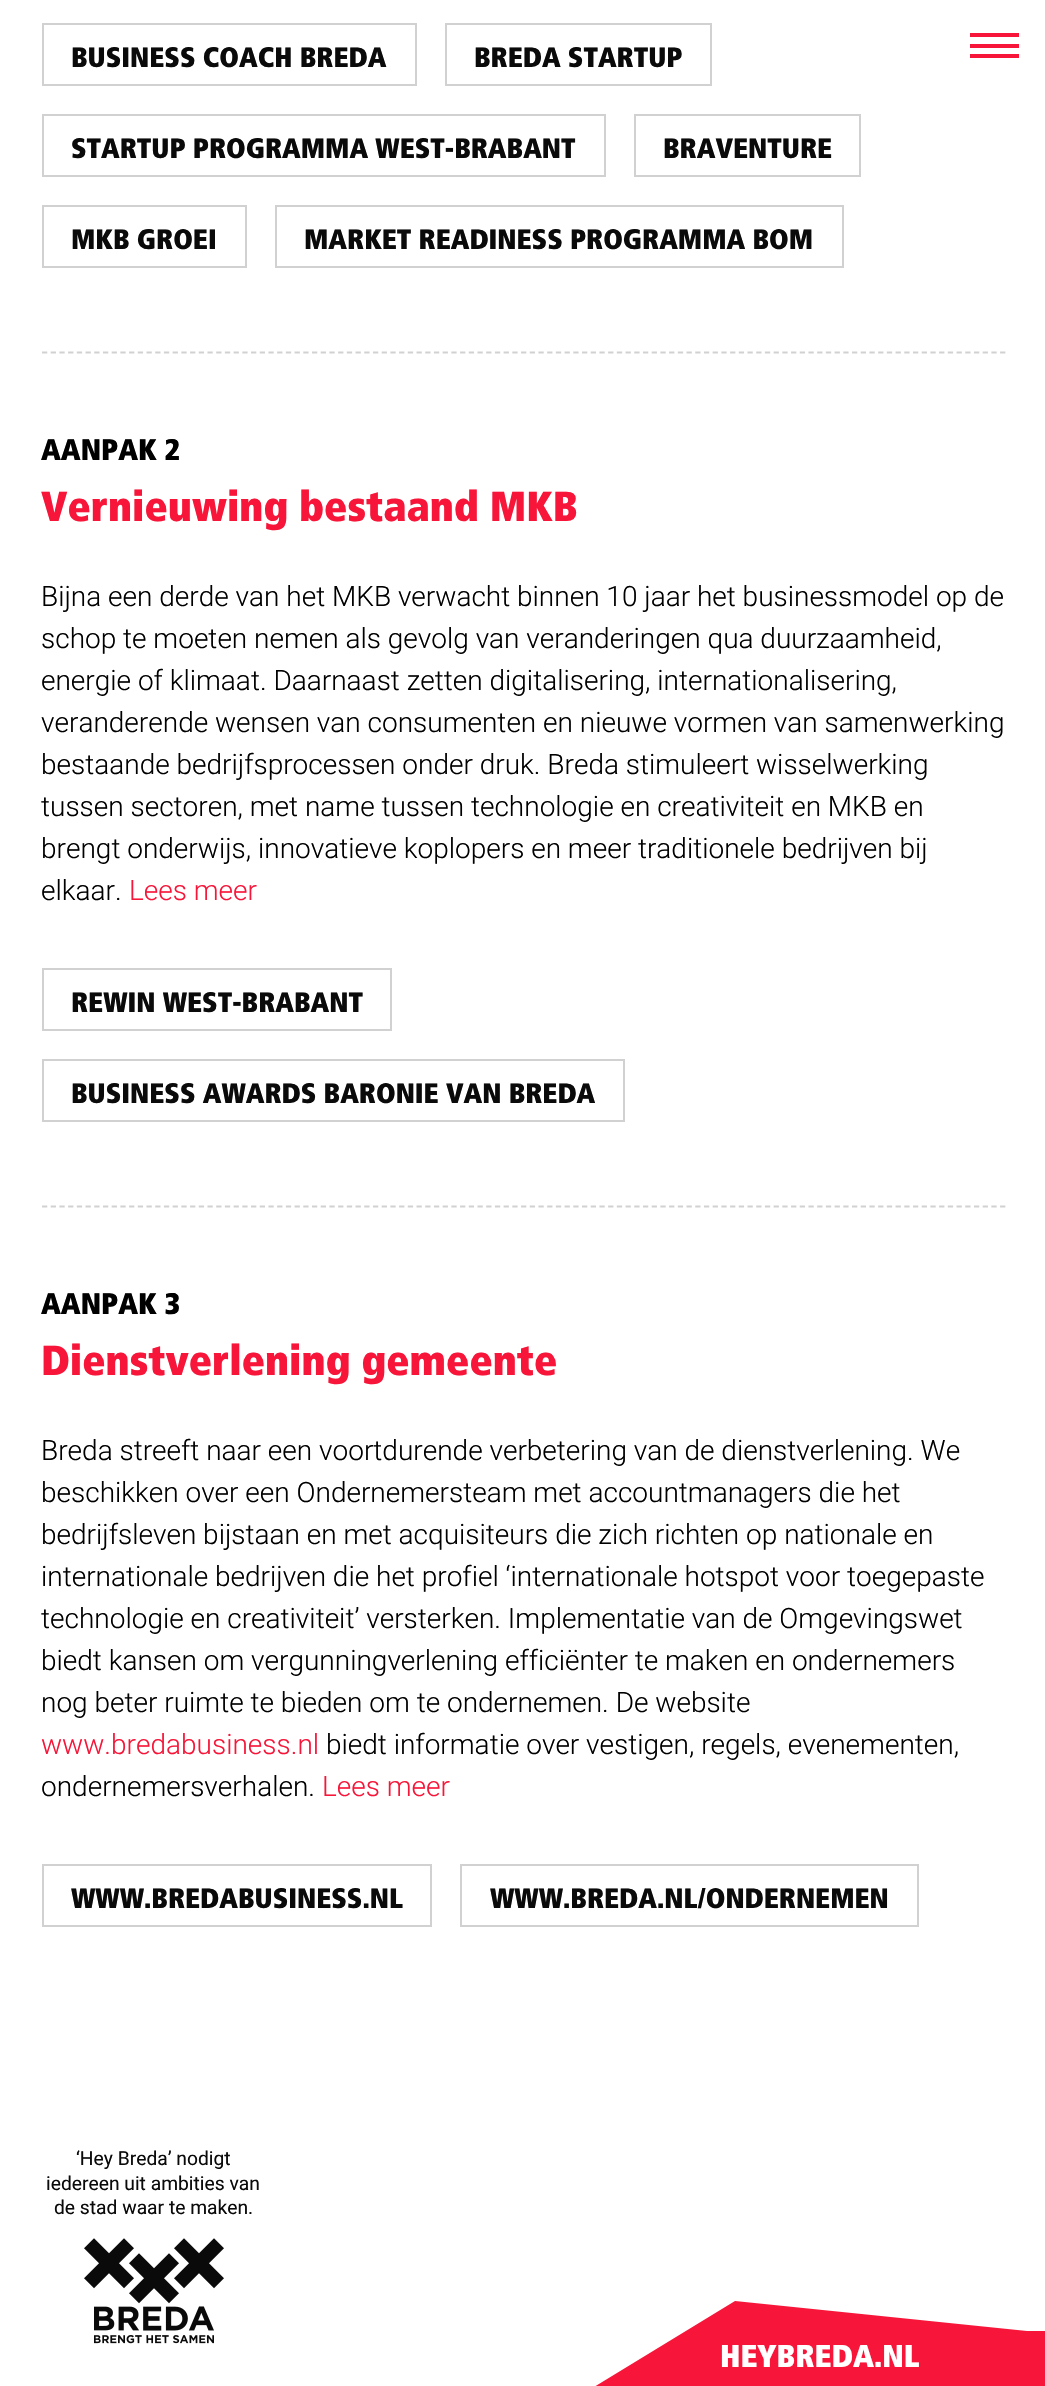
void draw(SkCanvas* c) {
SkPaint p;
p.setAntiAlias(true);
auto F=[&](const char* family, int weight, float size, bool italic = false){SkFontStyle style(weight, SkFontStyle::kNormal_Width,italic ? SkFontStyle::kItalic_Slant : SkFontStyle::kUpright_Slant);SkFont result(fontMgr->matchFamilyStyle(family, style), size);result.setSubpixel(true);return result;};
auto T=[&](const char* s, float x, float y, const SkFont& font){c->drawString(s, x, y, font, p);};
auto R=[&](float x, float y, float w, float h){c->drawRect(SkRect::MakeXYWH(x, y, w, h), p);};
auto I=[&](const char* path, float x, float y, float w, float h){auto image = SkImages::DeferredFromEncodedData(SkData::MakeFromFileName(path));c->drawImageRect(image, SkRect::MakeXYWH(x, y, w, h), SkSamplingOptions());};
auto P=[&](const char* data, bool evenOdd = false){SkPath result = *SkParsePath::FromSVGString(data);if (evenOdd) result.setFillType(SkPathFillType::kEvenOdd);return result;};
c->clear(0xffffffff);
p.setColor(0xfff71639);
R(970,44,49,4);
R(970,33,49,4);
R(970,54,49,4);
p.setStroke(true);
p.setStrokeWidth(2);
p.setColor(0xffd1d1d1);
c->drawRect(SkRect::MakeXYWH(43,24,373,61),p);
auto f1 = F("Frutiger",800,28);
p.setStroke(false);
p.setColor(0xff0a0a0a);
T("BUSINESS COACH BREDA",71,67,f1);
p.setStroke(true);
p.setColor(0xffd1d1d1);
c->drawRect(SkRect::MakeXYWH(446,24,265,61),p);
p.setStroke(false);
p.setColor(0xff0a0a0a);
T("BREDA STARTUP",474,67,f1);
p.setStroke(true);
p.setColor(0xffd1d1d1);
c->drawRect(SkRect::MakeXYWH(43,115,562,61),p);
p.setStroke(false);
p.setColor(0xff0a0a0a);
T("STARTUP PROGRAMMA WEST-BRABANT",71,158,f1);
p.setStroke(true);
p.setColor(0xffd1d1d1);
c->drawRect(SkRect::MakeXYWH(635,115,225,61),p);
p.setStroke(false);
p.setColor(0xff0a0a0a);
T("BRAVENTURE",663,158,f1);
p.setStroke(true);
p.setColor(0xffd1d1d1);
c->drawRect(SkRect::MakeXYWH(43,206,203,61),p);
p.setStroke(false);
p.setColor(0xff0a0a0a);
T("MKB GROEI",71,249,f1);
p.setStroke(true);
p.setColor(0xffd1d1d1);
c->drawRect(SkRect::MakeXYWH(276,206,567,61),p);
p.setStroke(false);
p.setColor(0xff0a0a0a);
T("MARKET READINESS PROGRAMMA BOM",304,249,f1);
p.setStroke(true);
p.setStrokeWidth(1.8);
p.setColor(0xffd1d1d1);
p.setPathEffect(SkDashPathEffect::Make({{5.25f,3.46f}}, 0));
c->drawPath(P("M42 352.5h964"),p);
p.setPathEffect(nullptr);
auto f2 = F("Frutiger",800,29.75);
p.setStroke(false);
p.setColor(0xff000000);
T("AANPAK 2",41,460,f2);
auto f3 = F("Frutiger",800,42);
p.setColor(0xfff71639);
T("Vernieuwing bestaand MKB",41,521,f3);
auto f4 = F("Roboto",300,28);
p.setColor(0xff000000);
T("Bijna een derde van het MKB verwacht binnen 10 jaar het businessmodel op de",41,606,f4);
T("schop te moeten nemen als gevolg van veranderingen qua duurzaamheid,",41,648,f4);
T("energie of klimaat. Daarnaast zetten digitalisering, internationalisering,",41,690,f4);
T("veranderende wensen van consumenten en nieuwe vormen van samenwerking",41,732,f4);
T("bestaande bedrijfsprocessen onder druk. Breda stimuleert wisselwerking",41,774,f4);
T("tussen sectoren, met name tussen technologie en creativiteit en MKB en",41,816,f4);
T("brengt onderwijs, innovatieve koplopers en meer traditionele bedrijven bij",41,858,f4);
T("elkaar.",41,900,f4);
p.setColor(0xfff71639);
T("Lees meer",129,900,f4);
p.setStroke(true);
p.setStrokeWidth(2);
p.setColor(0xffd1d1d1);
c->drawRect(SkRect::MakeXYWH(43,969,348,61),p);
p.setStroke(false);
p.setColor(0xff0a0a0a);
T("REWIN WEST-BRABANT",71,1012,f1);
p.setStroke(true);
p.setColor(0xffd1d1d1);
c->drawRect(SkRect::MakeXYWH(43,1060,581,61),p);
p.setStroke(false);
p.setColor(0xff0a0a0a);
T("BUSINESS AWARDS BARONIE VAN BREDA",71,1103,f1);
p.setStroke(true);
p.setStrokeWidth(1.8);
p.setColor(0xffd1d1d1);
p.setPathEffect(SkDashPathEffect::Make({{5.25f,3.46f}}, 0));
c->drawPath(P("M42 1206.5h964"),p);
p.setPathEffect(nullptr);
p.setStroke(false);
p.setColor(0xff000000);
T("AANPAK 3",41,1314,f2);
p.setColor(0xfff71639);
T("Dienstverlening gemeente",41,1375,f3);
p.setColor(0xff000000);
T("Breda streeft naar een voortdurende verbetering van de dienstverlening. We",41,1460,f4);
T("beschikken over een Ondernemersteam met accountmanagers die het",41,1502,f4);
T("bedrijfsleven bijstaan en met acquisiteurs die zich richten op nationale en",41,1544,f4);
T("internationale bedrijven die het profiel ‘internationale hotspot voor toegepaste",41,1586,f4);
T("technologie en creativiteit’ versterken. Implementatie van de Omgevingswet",41,1628,f4);
T("biedt kansen om vergunningverlening efficiënter te maken en ondernemers",41,1670,f4);
T("nog beter ruimte te bieden om te ondernemen. De website",41,1712,f4);
p.setColor(0xfff71639);
T("www.bredabusiness.nl",41,1754,f4);
p.setColor(0xff000000);
T("biedt informatie over vestigen, regels, evenementen,",326,1754,f4);
T("ondernemersverhalen.",41,1796,f4);
p.setColor(0xfff71639);
T("Lees meer",322,1796,f4);
p.setStroke(true);
p.setStrokeWidth(2);
p.setColor(0xffd1d1d1);
c->drawRect(SkRect::MakeXYWH(43,1865,388,61),p);
p.setStroke(false);
p.setColor(0xff0a0a0a);
T("WWW.BREDABUSINESS.NL",71,1908,f1);
p.setStroke(true);
p.setColor(0xffd1d1d1);
c->drawRect(SkRect::MakeXYWH(461,1865,457,61),p);
p.setStroke(false);
p.setColor(0xff0a0a0a);
T("WWW.BREDA.NL/ONDERNEMEN",490,1908,f1);
auto f5 = F("Roboto",400,19.25);
T("‘Hey Breda’ nodigt",76,2165,f5);
T("iedereen uit ambities van",46,2190,f5);
T("de stad waar te maken.",54,2214,f5);
I("1.png",84,2238,140,106);
p.setColor(0xfff71639);
c->drawPath(P("M735 2301l-141 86v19h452v-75h-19z"),p);
auto f6 = F("Frutiger",800,31.5);
p.setColor(0xffffffff);
T("HEYBREDA.NL",720,2367,f6);
}
